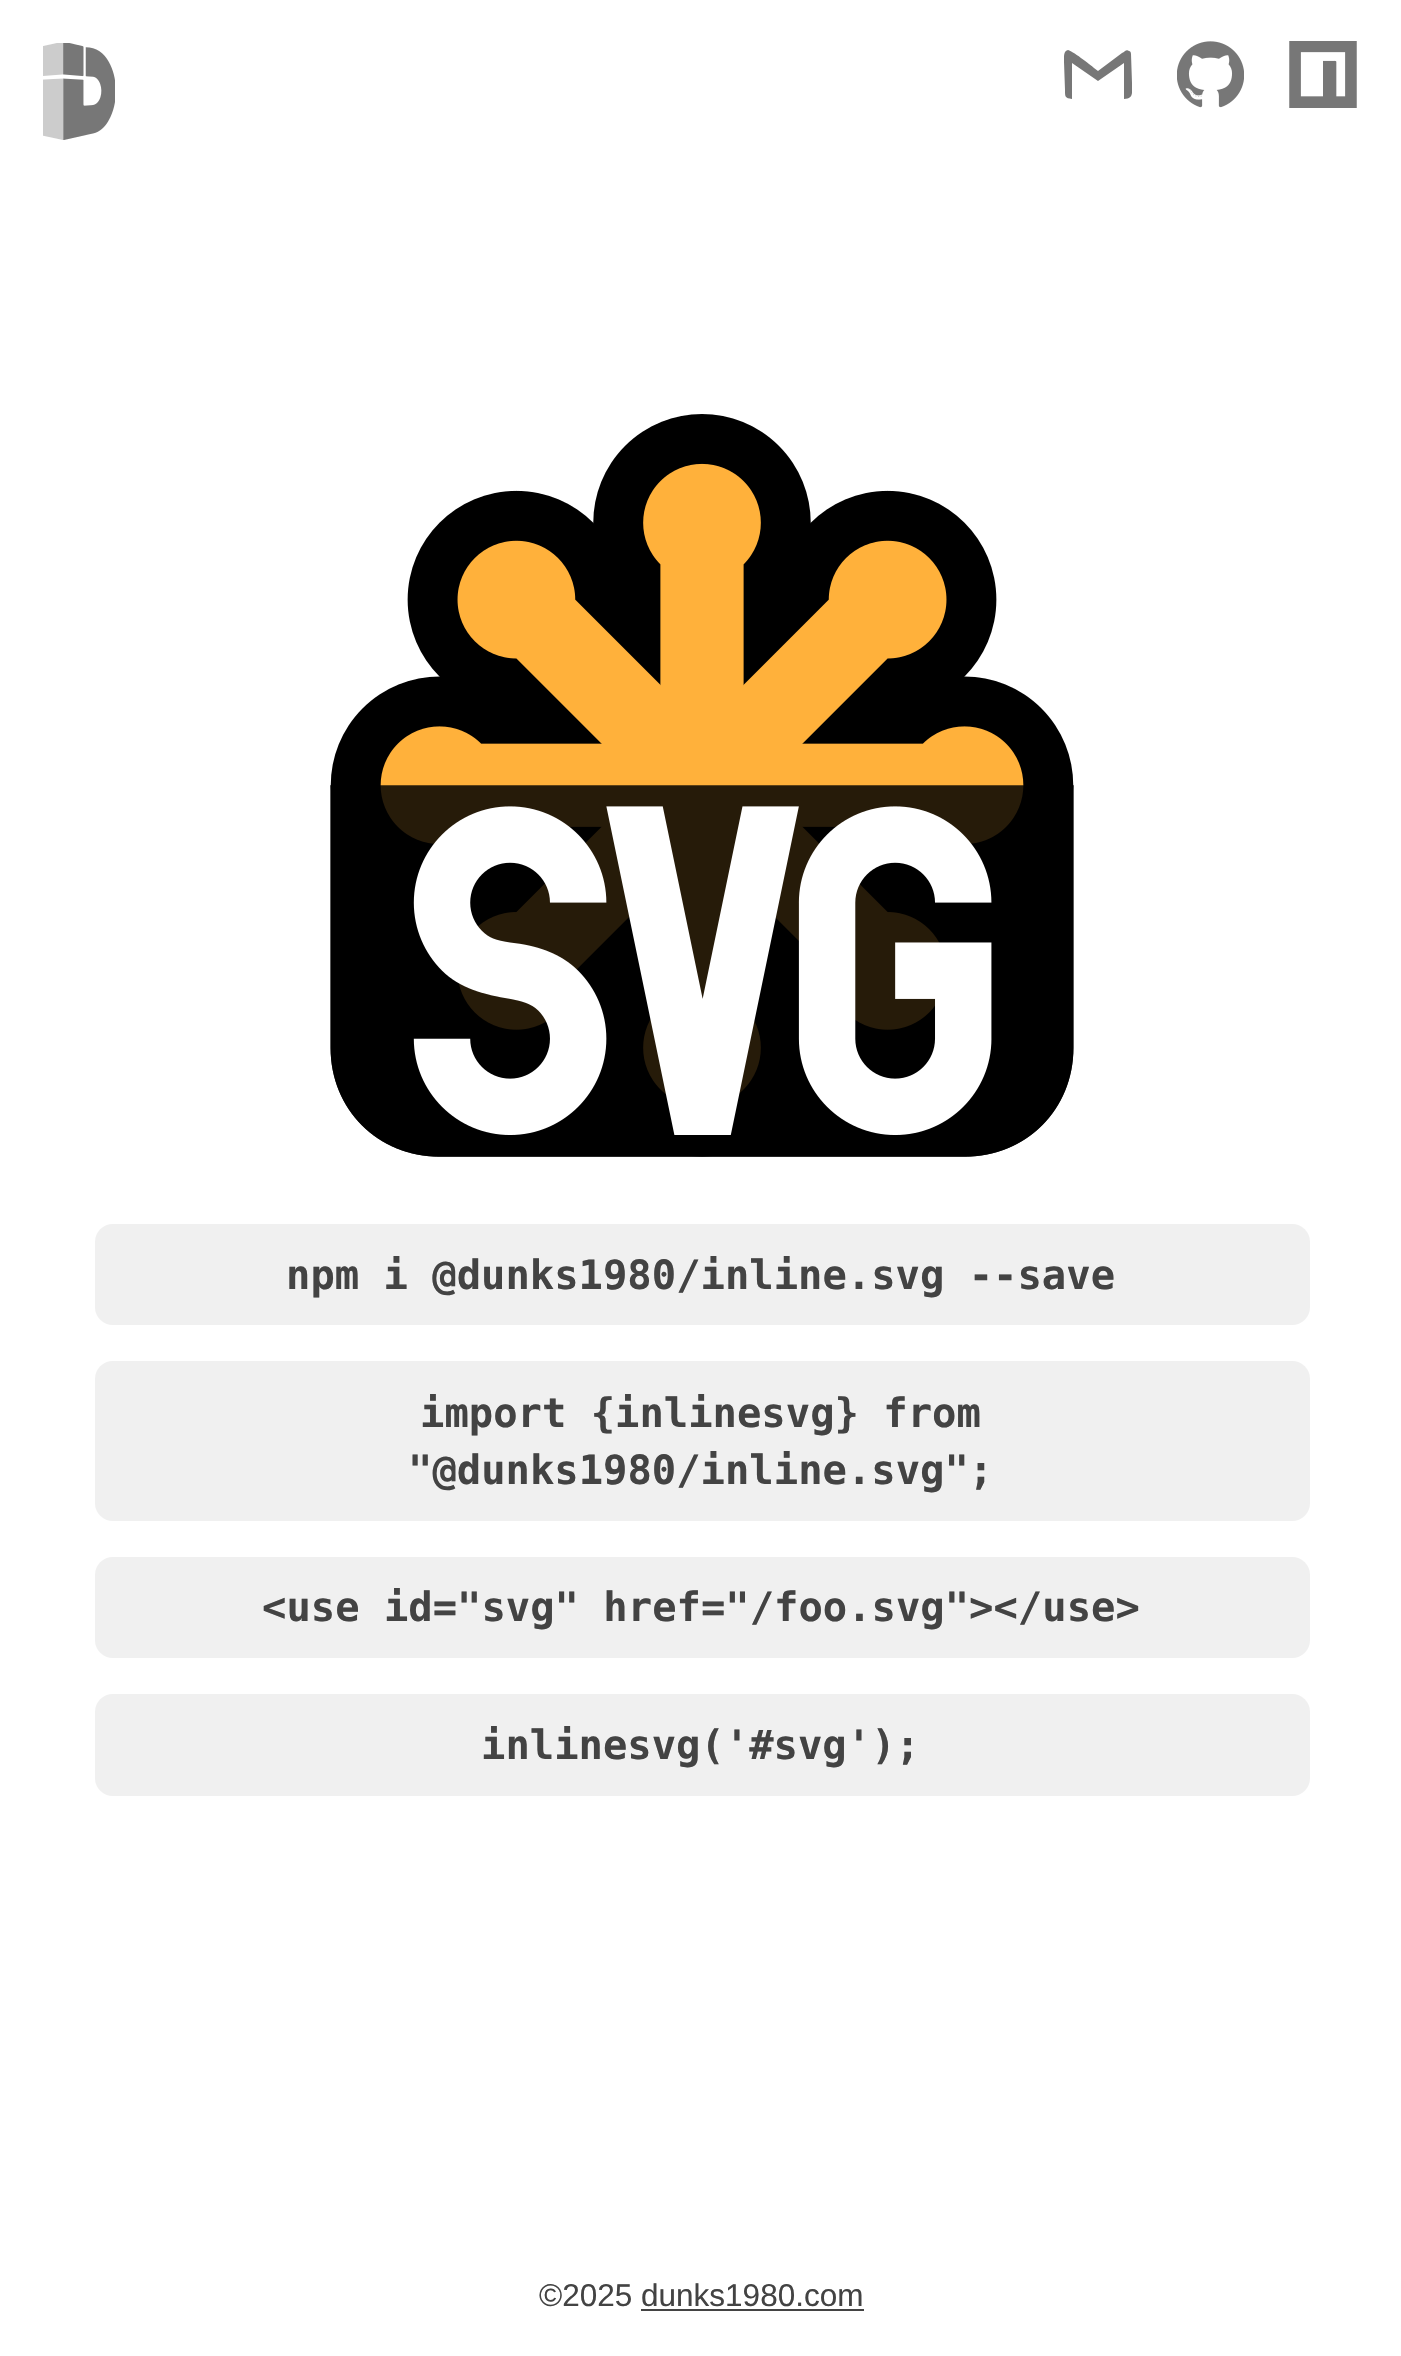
void draw(SkCanvas* c) {
SkPaint p;
p.setAntiAlias(true);
auto F=[&](const char* family, int weight, float size, bool italic = false){SkFontStyle style(weight, SkFontStyle::kNormal_Width,italic ? SkFontStyle::kItalic_Slant : SkFontStyle::kUpright_Slant);SkFont result(fontMgr->matchFamilyStyle(family, style), size);result.setSubpixel(true);return result;};
auto T=[&](const char* s, float x, float y, const SkFont& font){c->drawString(s, x, y, font, p);};
auto R=[&](float x, float y, float w, float h){c->drawRect(SkRect::MakeXYWH(x, y, w, h), p);};
auto Q=[&](float x, float y, float w, float h, float radius){c->drawRoundRect(SkRect::MakeXYWH(x, y, w, h), radius, radius, p);};
auto I=[&](const char* path, float x, float y, float w, float h){auto image = SkImages::DeferredFromEncodedData(SkData::MakeFromFileName(path));c->drawImageRect(image, SkRect::MakeXYWH(x, y, w, h), SkSamplingOptions());};
auto P=[&](const char* data, bool evenOdd = false){SkPath result = *SkParsePath::FromSVGString(data);if (evenOdd) result.setFillType(SkPathFillType::kEvenOdd);return result;};
c->clear(0xffffffff);
I("1.png",43,43,72,97);
c->save();
c->clipRect(SkRect::MakeXYWH(1064,41,68,67));
p.setColor(0xff777777);
c->drawPath(P("M1068 50c-5 1-4 8-4 12l1 28c0 7 0 8 7 9v-36l26 18l26-18v36c10 0 8-7 8-16l-1-29c0-2-1-3-2-3c-3-2-4 1-7 2l-24 18l-4-3c-3-3-23-18-26-18z"),p);
c->restore();
I("2.png",1177,41,67,67);
I("3.png",1289,41,68,67);
I("4.png",330,414,744,743);
p.setColor(0xfff0f0f0);
Q(95,1224,1215,101,18);
auto f1 = F("DejaVu Sans Mono",700,40.5);
p.setColor(0xff434343);
T("npm i @dunks1980/inline.svg --save",286,1289,f1);
p.setColor(0xfff0f0f0);
Q(95,1361,1215,160,18);
p.setColor(0xff434343);
T("import {inlinesvg} from",420,1427,f1);
T("\"@dunks1980/inline.svg\";",408,1484,f1);
p.setColor(0xfff0f0f0);
Q(95,1557,1215,101,18);
p.setColor(0xff434343);
T("<use id=\"svg\" href=\"/foo.svg\"></use>",262,1621,f1);
p.setColor(0xfff0f0f0);
Q(95,1694,1215,102,18);
p.setColor(0xff434343);
T("inlinesvg('#svg');",481,1759,f1);
auto f2 = F("Liberation Sans",400,31.5);
T("©2025 dunks1980.com",539,2306,f2);
R(641,2309,223,2);
}
